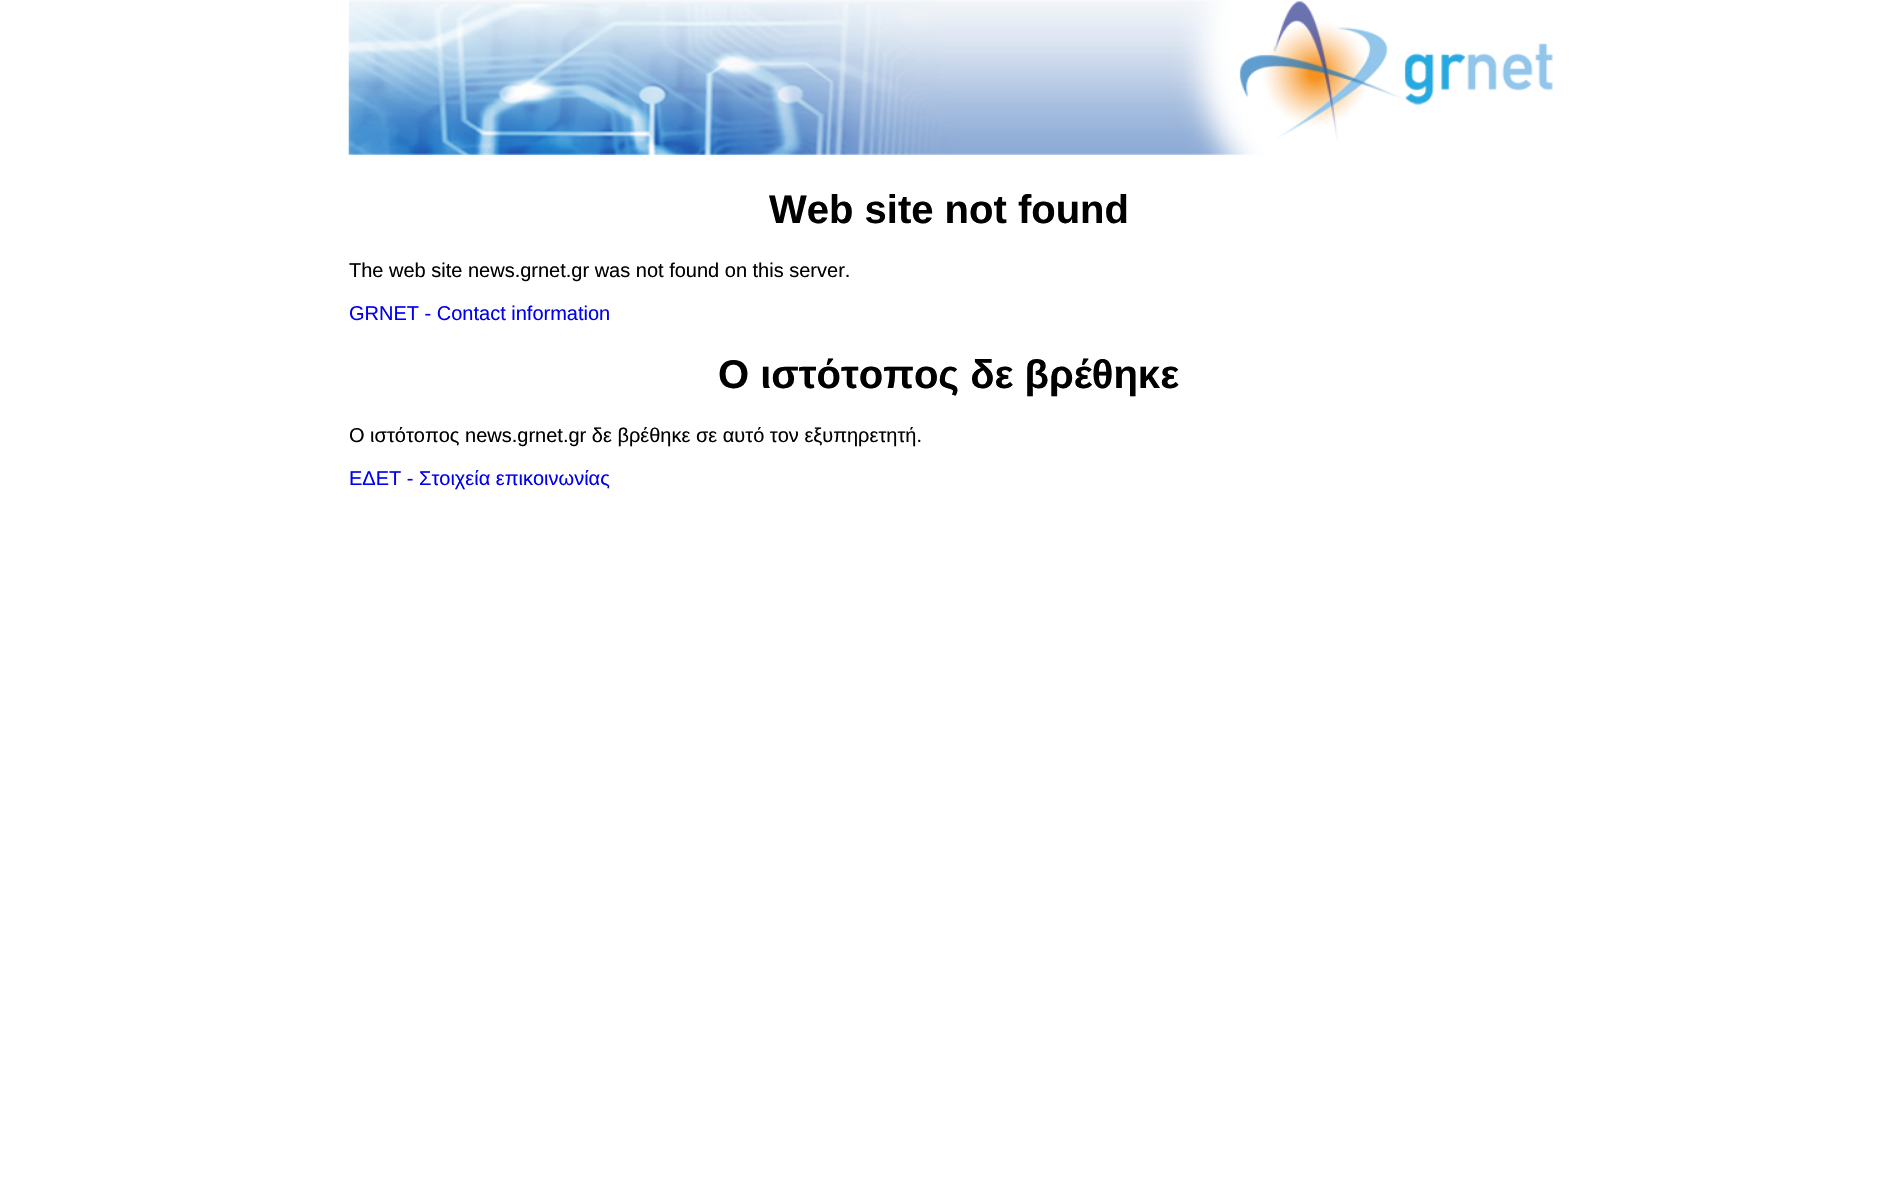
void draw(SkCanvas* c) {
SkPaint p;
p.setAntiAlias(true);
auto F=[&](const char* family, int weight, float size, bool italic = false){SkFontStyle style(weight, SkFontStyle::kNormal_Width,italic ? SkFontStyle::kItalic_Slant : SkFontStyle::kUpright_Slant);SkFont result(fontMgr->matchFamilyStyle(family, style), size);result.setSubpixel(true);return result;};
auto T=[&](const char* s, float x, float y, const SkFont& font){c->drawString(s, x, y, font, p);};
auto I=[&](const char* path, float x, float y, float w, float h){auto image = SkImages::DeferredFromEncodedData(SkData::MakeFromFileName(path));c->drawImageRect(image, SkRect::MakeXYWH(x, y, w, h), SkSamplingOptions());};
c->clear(0xffffffff);
I("1.png",348,0,1205,155);
auto f1 = F("Liberation Sans",700,40);
p.setColor(0xff000000);
T("Web site not found",769,223,f1);
auto f2 = F("Liberation Sans",400,20);
T("The web site news.grnet.gr was not found on this server.",349,277,f2);
p.setColor(0xff0000ee);
T("GRNET - Contact information",349,320,f2);
p.setColor(0xff000000);
T("Ο ιστότοπος δε βρέθηκε",718,388,f1);
T("Ο ιστότοπος news.grnet.gr δε βρέθηκε σε αυτό τον εξυπηρετητή.",349,442,f2);
p.setColor(0xff0000ee);
T("ΕΔΕΤ - Στοιχεία επικοινωνίας",349,485,f2);
}
